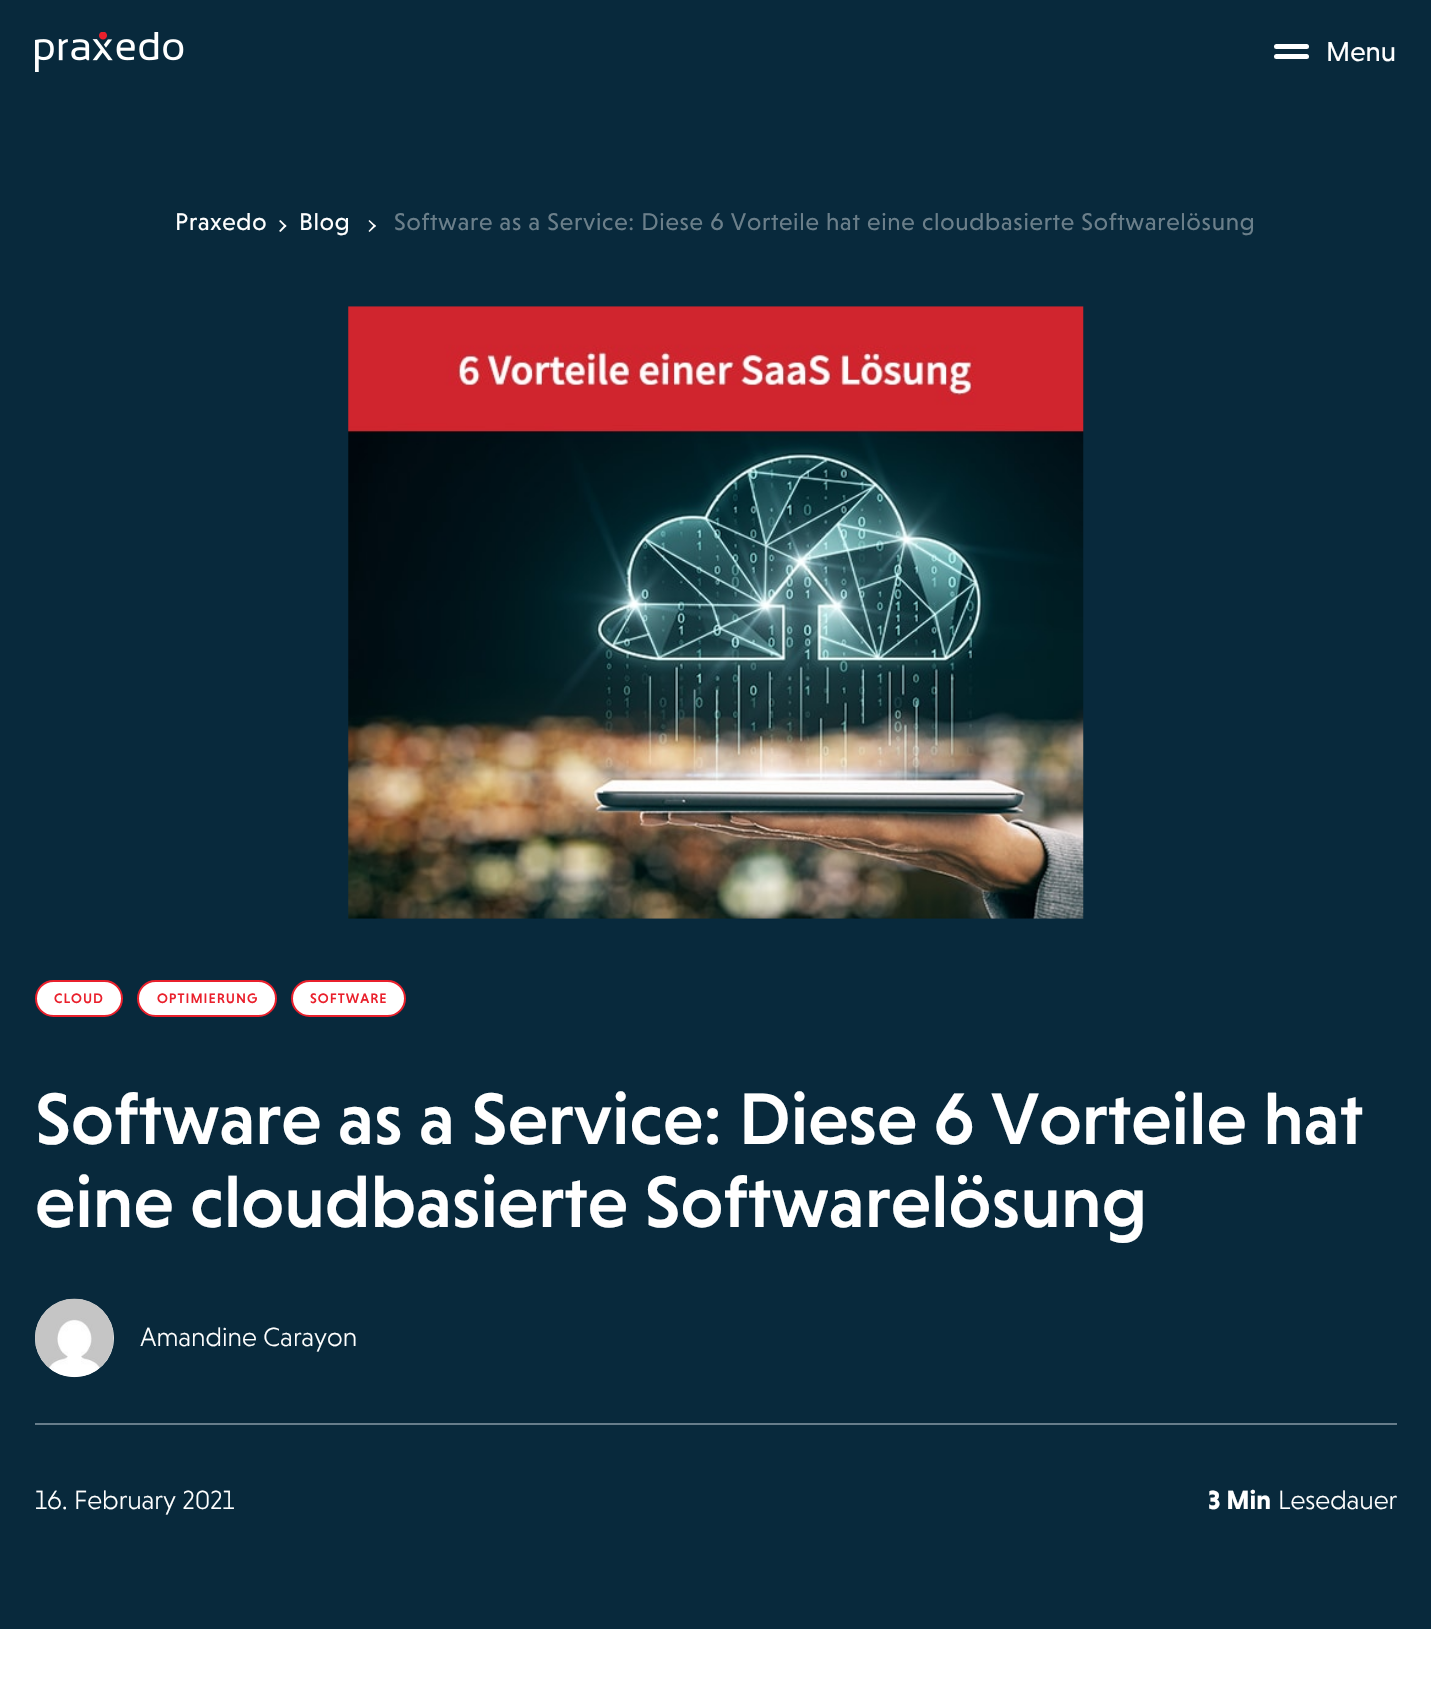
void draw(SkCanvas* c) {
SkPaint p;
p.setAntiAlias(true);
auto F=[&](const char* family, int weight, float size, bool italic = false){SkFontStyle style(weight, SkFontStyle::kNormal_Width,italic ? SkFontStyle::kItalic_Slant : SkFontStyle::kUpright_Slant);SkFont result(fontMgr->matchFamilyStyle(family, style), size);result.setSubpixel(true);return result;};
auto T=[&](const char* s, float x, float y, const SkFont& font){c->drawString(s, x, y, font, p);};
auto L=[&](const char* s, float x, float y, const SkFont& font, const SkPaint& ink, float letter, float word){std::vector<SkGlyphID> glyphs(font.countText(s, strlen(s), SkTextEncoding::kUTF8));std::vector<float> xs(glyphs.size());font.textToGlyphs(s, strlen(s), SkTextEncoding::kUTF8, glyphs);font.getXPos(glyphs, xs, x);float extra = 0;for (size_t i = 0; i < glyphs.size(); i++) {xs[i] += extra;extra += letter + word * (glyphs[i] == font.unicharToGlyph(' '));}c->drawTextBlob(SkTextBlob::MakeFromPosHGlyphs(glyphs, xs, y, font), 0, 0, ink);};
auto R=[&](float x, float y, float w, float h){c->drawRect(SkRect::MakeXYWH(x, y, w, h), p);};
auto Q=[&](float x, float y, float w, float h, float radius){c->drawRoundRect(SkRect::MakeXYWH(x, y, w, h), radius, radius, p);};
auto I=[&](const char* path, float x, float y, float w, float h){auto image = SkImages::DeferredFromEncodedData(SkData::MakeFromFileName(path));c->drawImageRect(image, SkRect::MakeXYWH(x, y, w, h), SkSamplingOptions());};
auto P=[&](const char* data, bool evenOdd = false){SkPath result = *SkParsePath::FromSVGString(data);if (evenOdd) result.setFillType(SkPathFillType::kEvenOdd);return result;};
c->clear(0xffffffff);
p.setColor(0xff08293c);
R(0,0,1431,1629);
I("1.png",35,32,149,40);
p.setColor(0xffffffff);
Q(1274,44,35,5,2.5);
Q(1274,54,35,5,2.5);
auto f1 = F("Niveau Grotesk",400,28);
T("Menu",1326,61,f1);
auto f2 = F("Niveau Grotesk",400,24.5);
L("Praxedo",175,230,f2,p,.73,0);
c->drawPath(P("M280.5 220l6 6l-1.5 1l-6-6z"),p);
c->drawPath(P("M285 224.5l1.5 1.5l-6 6l-1.5-1z"),p);
L("Blog",299,230,f2,p,.73,0);
c->drawPath(P("M369.5 220l6.5 6l-1.5 1l-6-6z"),p);
c->drawPath(P("M374.5 224.5l1.5 1.5l-6.5 6l-1-1z"),p);
p.setColor(0xff6b7f8a);
L("Software as a Service: Diese 6 Vorteile hat eine cloudbasierte Softwarelösung",394,230,f2,p,.73,0);
I("2.png",348,306,736,613);
p.setColor(0xffffffff);
c->drawRoundRect(SkRect::MakeXYWH(36,981,86,35),17.5,17.5,p);
p.setStroke(true);
p.setStrokeWidth(2);
p.setColor(0xffea202c);
c->drawRoundRect(SkRect::MakeXYWH(36,981,86,35),17.5,17.5,p);
auto f3 = F("Niveau Grotesk",500,14);
p.setStroke(false);
L("CLOUD",54,1003,f3,p,1,0);
p.setColor(0xffffffff);
c->drawRoundRect(SkRect::MakeXYWH(138,981,138,35),17.5,17.5,p);
p.setStroke(true);
p.setColor(0xffea202c);
c->drawRoundRect(SkRect::MakeXYWH(138,981,138,35),17.5,17.5,p);
p.setStroke(false);
L("OPTIMIERUNG",157,1003,f3,p,1,0);
p.setColor(0xffffffff);
c->drawRoundRect(SkRect::MakeXYWH(292,981,113,35),17.5,17.5,p);
p.setStroke(true);
p.setColor(0xffea202c);
c->drawRoundRect(SkRect::MakeXYWH(292,981,113,35),17.5,17.5,p);
p.setStroke(false);
L("SOFTWARE",310,1003,f3,p,1,0);
auto f4 = F("Niveau Grotesk",500,74.25);
p.setColor(0xffffffff);
T("Software as a Service: Diese 6 Vorteile hat",35,1144,f4);
T("eine cloudbasierte Softwarelösung",35,1227,f4);
p.setColor(0xff677d8b);
R(35,1423,1362,2);
p.setColor(0xffffffff);
Q(35,1299,79,78,39);
I("3.png",35,1298,79,80);
auto f5 = F("Niveau Grotesk",300,26.75);
T("Amandine Carayon",140,1346,f5);
T("16. February 2021",35,1509,f5);
auto f6 = F("Niveau Grotesk",700,26.75);
T("3 Min",1208,1509,f6);
T("Lesedauer",1278,1509,f5);
}
